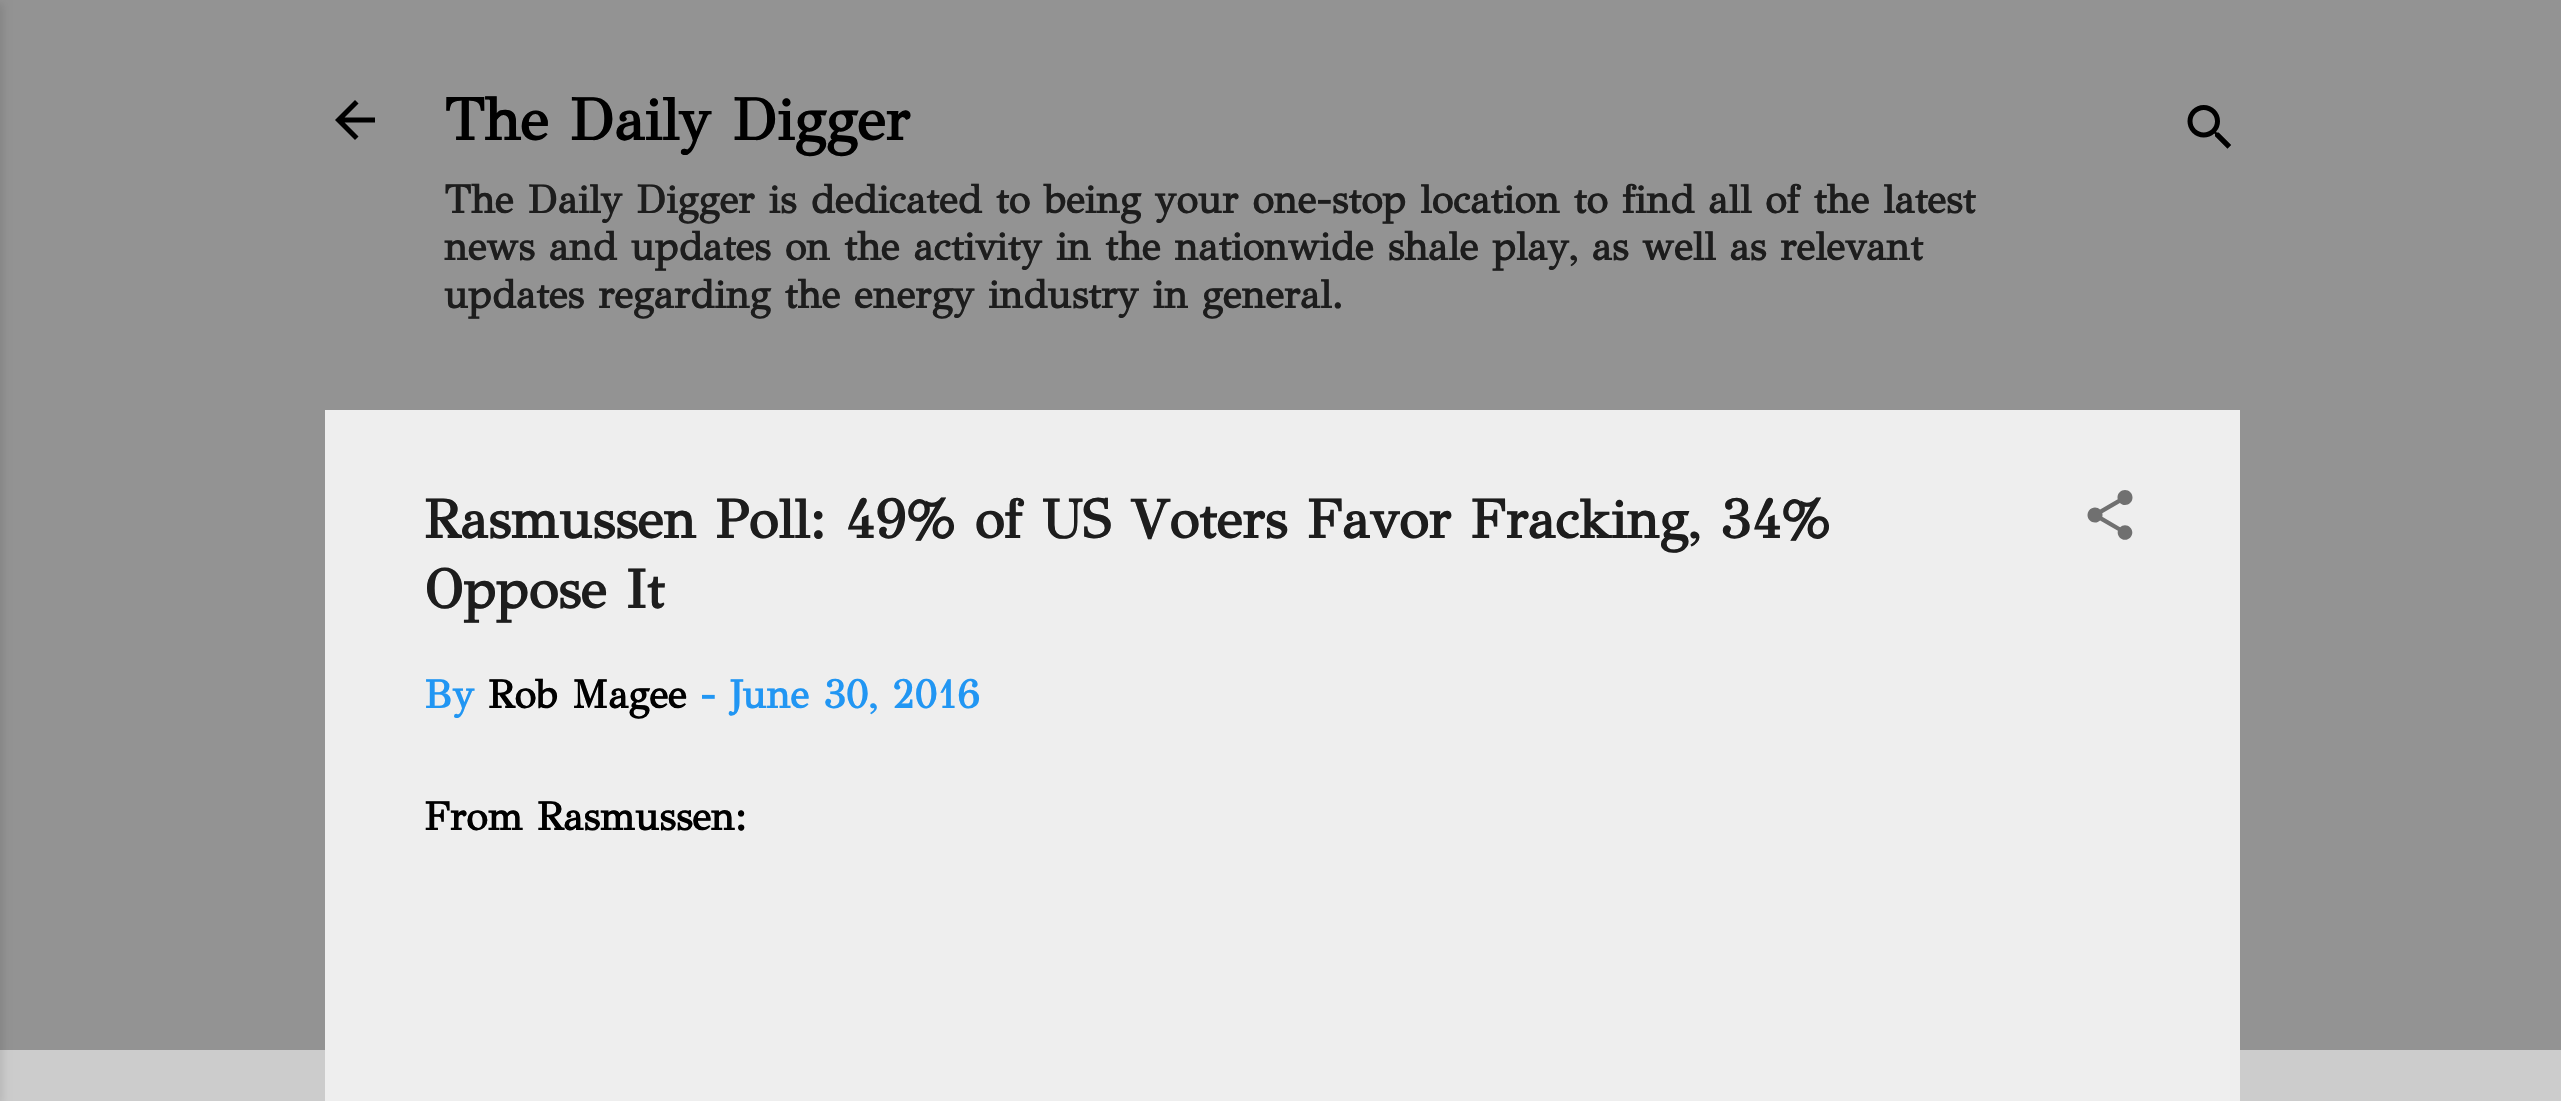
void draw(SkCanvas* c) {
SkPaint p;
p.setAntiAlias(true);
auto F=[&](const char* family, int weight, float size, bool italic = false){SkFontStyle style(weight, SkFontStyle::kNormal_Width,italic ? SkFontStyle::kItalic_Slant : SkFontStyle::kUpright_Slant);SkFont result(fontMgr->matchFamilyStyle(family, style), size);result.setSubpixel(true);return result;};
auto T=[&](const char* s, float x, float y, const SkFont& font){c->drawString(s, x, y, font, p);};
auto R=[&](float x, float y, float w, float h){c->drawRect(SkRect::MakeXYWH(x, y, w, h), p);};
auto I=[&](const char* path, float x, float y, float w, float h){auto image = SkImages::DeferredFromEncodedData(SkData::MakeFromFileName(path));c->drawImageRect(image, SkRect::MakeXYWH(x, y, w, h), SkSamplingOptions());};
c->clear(0xffcccccc);
p.setColor(0xff939393);
R(0,0,2561,1050);
p.setColor(0x1a000000);
p.setMaskFilter(SkMaskFilter::MakeBlur(kNormal_SkBlurStyle, 4));
c->drawRect(SkRect::MakeXYWH(-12,3,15,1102),p);
p.setMaskFilter(nullptr);
I("1.png",335,100,40,40);
auto f1 = F("GFS Didot",700,60);
p.setColor(0xff000000);
T("The Daily Digger",444,140,f1);
auto f2 = F("GFS Didot",700,40);
p.setColor(0xff1d1d1d);
T("The Daily Digger is dedicated to being your one-stop location to find all of the latest",444,213,f2);
T("news and updates on the activity in the nationwide shale play, as well as relevant",444,260,f2);
T("updates regarding the energy industry in general.",444,308,f2);
I("2.png",2187,105,44,44);
p.setColor(0xffeeeeee);
R(325,410,1915,691);
auto f3 = F("GFS Didot",700,55);
p.setColor(0xff1d1d1d);
T("Rasmussen Poll: 49% of US Voters Favor Fracking, 34%",424,538,f3);
T("Oppose It",424,608,f3);
I("3.png",2087,490,46,50);
p.setColor(0xff2196f3);
T("By",424,708,f2);
p.setColor(0xff000000);
T("Rob Magee",488,708,f2);
p.setColor(0xff2196f3);
T("- June 30, 2016",700,708,f2);
p.setColor(0xff000000);
T("From Rasmussen:",424,830,f2);
}
